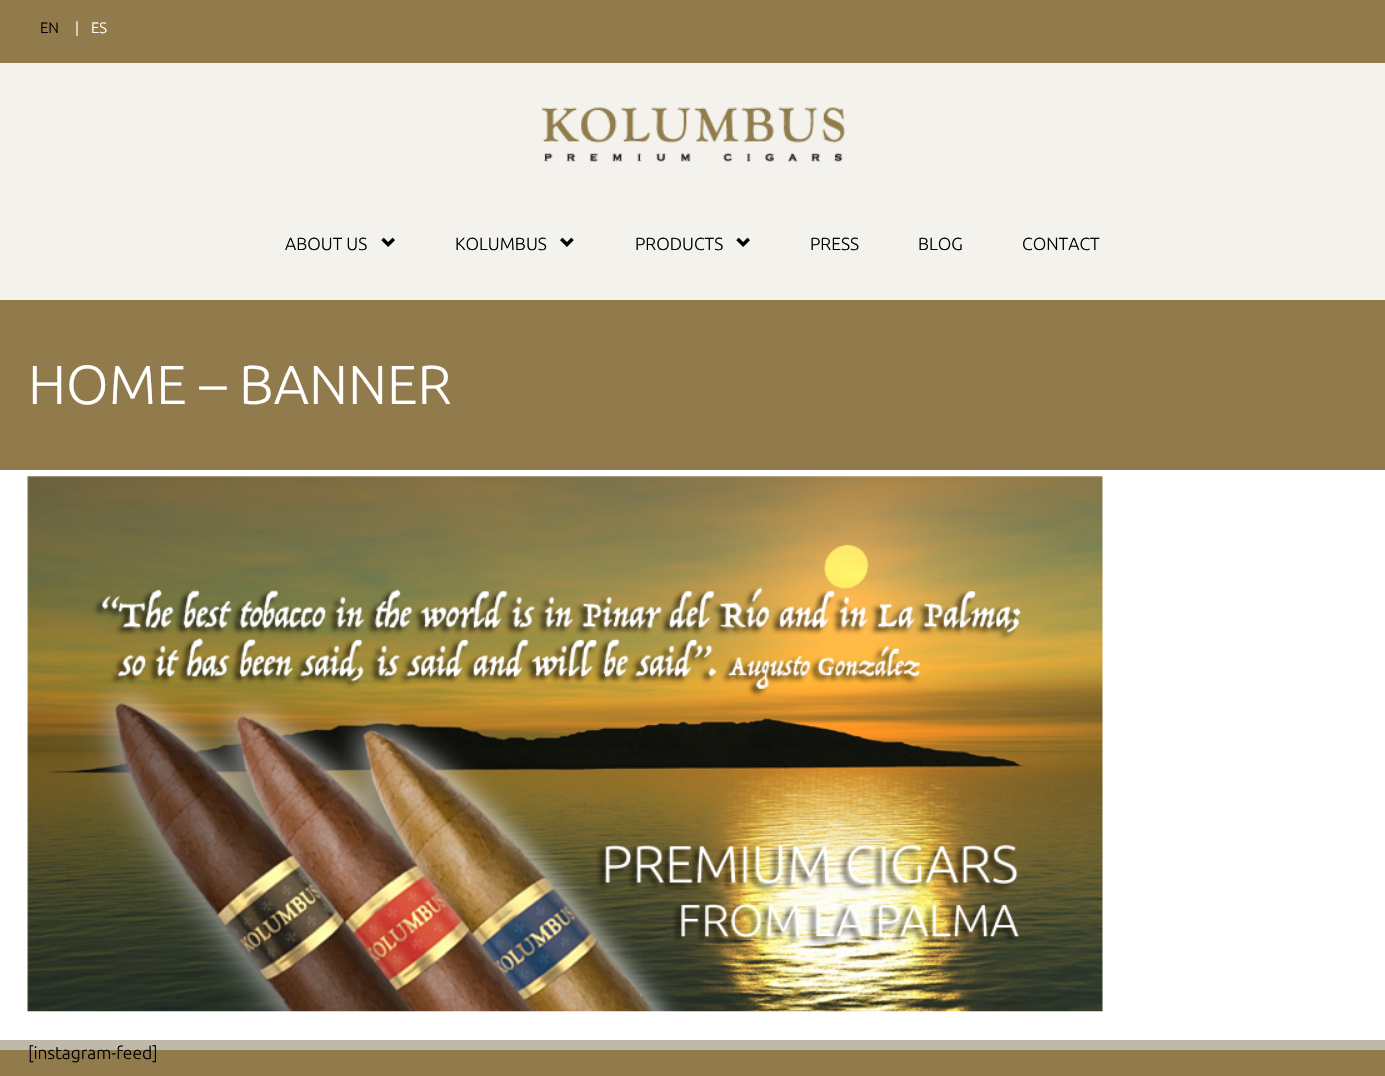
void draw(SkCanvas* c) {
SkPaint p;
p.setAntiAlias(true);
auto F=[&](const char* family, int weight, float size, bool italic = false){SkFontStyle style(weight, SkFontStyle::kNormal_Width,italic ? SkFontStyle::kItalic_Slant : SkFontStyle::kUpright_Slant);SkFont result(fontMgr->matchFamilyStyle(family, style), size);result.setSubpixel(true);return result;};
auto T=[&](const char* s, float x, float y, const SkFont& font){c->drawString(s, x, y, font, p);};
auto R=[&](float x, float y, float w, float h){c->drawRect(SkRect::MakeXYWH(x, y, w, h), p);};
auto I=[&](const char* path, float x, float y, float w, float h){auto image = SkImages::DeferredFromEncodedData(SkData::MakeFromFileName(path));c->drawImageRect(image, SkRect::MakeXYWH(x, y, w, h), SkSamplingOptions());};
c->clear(0xffffffff);
p.setColor(0xff917b4c);
R(0,0,1385,470);
auto f1 = F("Ubuntu",300,15);
p.setColor(0xff000000);
T("EN",40,33,f1);
p.setColor(0xffffffff);
T("|",75,33,f1);
T("ES",91,33,f1);
p.setColor(0xfff4f2ed);
R(0,63,1385,237);
I("1.png",541,107,305,55);
auto f2 = F("Ubuntu",300,17.5);
p.setColor(0xff000000);
T("ABOUT US",285,250,f2);
I("2.png",381,237,14,10);
T("KOLUMBUS",455,250,f2);
I("3.png",560,237,14,10);
T("PRODUCTS",635,250,f2);
I("2.png",736,237,14,10);
T("PRESS",810,250,f2);
T("BLOG",918,250,f2);
T("CONTACT",1022,250,f2);
auto f3 = F("Ubuntu",300,55);
p.setColor(0xffffffff);
T("HOME – BANNER",28,404,f3);
I("4.png",27,476,1076,536);
p.setColor(0xff917b4c);
R(0,1050,1385,26);
p.setColor(0xffbfb9aa);
R(0,1040,1385,10);
p.setColor(0xff000000);
T("[instagram-feed]",28,1059,f2);
}
